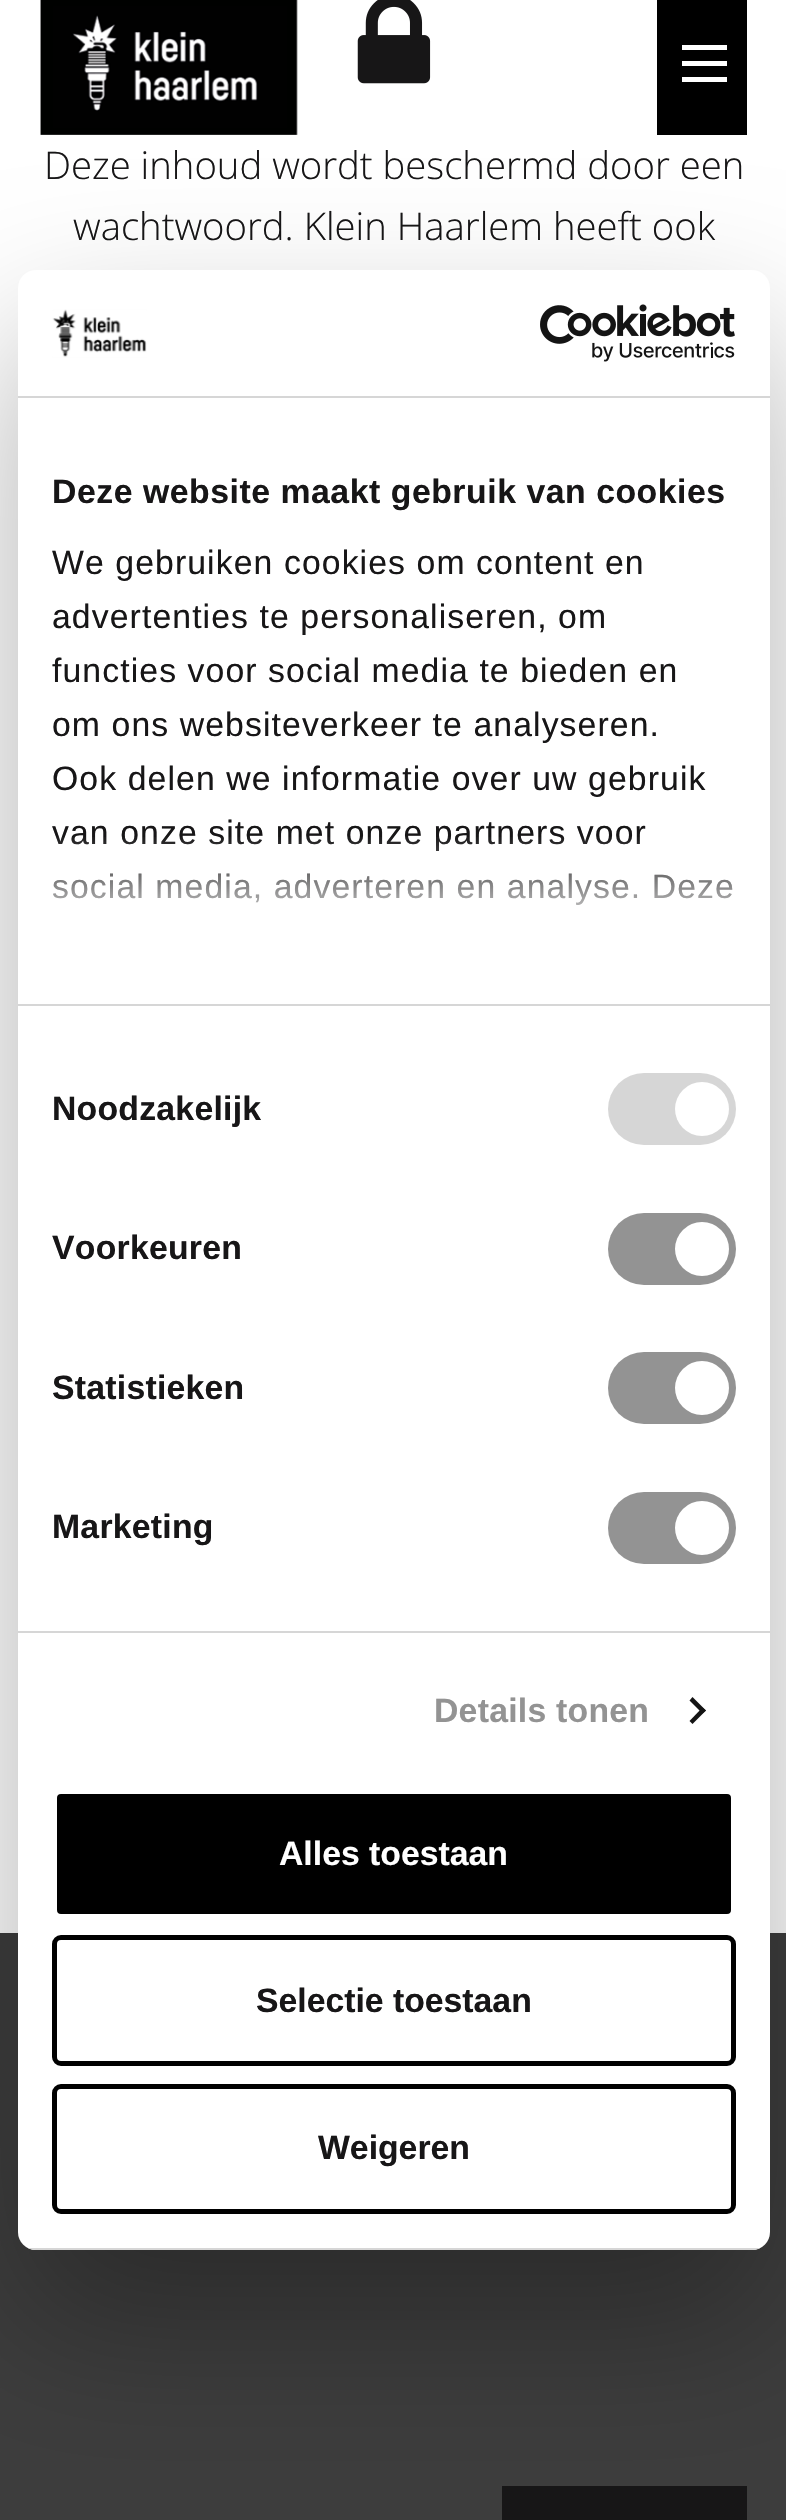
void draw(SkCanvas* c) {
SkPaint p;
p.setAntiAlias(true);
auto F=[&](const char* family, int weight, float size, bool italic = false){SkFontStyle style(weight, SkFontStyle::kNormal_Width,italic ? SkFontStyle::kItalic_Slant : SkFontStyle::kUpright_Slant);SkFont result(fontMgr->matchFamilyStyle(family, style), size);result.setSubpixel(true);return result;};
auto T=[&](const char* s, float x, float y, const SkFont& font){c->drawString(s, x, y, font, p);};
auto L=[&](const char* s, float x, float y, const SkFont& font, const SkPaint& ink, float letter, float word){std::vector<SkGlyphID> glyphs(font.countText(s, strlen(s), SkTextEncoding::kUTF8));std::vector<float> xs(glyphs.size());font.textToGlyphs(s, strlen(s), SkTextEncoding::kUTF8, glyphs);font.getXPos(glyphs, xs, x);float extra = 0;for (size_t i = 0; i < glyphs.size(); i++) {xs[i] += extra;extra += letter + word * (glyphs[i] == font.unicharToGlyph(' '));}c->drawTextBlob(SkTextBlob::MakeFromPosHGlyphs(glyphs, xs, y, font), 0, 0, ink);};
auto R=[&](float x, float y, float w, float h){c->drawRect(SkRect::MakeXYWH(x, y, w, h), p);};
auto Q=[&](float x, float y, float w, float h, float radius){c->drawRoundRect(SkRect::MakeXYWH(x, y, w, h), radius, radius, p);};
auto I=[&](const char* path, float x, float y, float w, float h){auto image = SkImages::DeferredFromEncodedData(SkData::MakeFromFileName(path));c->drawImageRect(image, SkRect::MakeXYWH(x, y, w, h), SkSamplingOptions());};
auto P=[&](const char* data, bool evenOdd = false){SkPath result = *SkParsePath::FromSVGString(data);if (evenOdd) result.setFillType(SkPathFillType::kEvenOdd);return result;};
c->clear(0xffffffff);
I("1.png",40,0,258,135);
p.setColor(0xff000000);
R(657,0,90,135);
p.setColor(0xffffffff);
R(682,45,45,5);
R(682,61,45,5);
R(682,77,45,5);
I("2.png",357,0,74,84);
auto f1 = F("Open Sans",300,38.25);
p.setColor(0xff171617);
T("Deze inhoud wordt beschermd door een",44,179,f1);
T("wachtwoord. Klein Haarlem heeft ook",73,240,f1);
p.setColor(0xff3d3d3d);
R(0,1933,786,587);
p.setColor(0xff171617);
R(502,2486,245,34);
p.setColor(0x4d000000);
p.setMaskFilter(SkMaskFilter::MakeBlur(kNormal_SkBlurStyle, 76.5));
c->drawRoundRect(SkRect::MakeXYWH(18,342,752,1980),18,18,p);
p.setMaskFilter(nullptr);
p.setColor(0xffffffff);
Q(18,270,752,1980,18);
p.setColor(0xffd6d6d6);
R(18,396,752,2);
I("3.png",52,309,95,49);
I("4.png",540,304,195,58);
R(18,1004,752,2);
auto f2 = F("Liberation Sans",700,33.75);
p.setColor(0xff171617);
L("Deze website maakt gebruik van cookies",52,503,f2,p,.55,0);
auto f3 = F("Liberation Sans",400,33.75);
L("We gebruiken cookies om content en",52,574,f3,p,1.1,0);
L("advertenties te personaliseren, om",52,628,f3,p,1.1,0);
L("functies voor social media te bieden en",52,682,f3,p,1.1,0);
L("om ons websiteverkeer te analyseren.",52,736,f3,p,1.1,0);
L("Ook delen we informatie over uw gebruik",52,790,f3,p,1.1,0);
L("van onze site met onze partners voor",52,844,f3,p,1.1,0);
L("social media, adverteren en analyse. Deze",52,898,f3,p,1.1,0);
{
const SkColor colors[] = {0xffffffff,0xccffffff,0x00ffffff};
const float stops[] = {0,.5,1};
const SkPoint ends[] = {{379,1004}, {379,835}};
p.setShader(SkGradientShader::MakeLinear(ends, colors, stops, 3, SkTileMode::kClamp));
p.setAlpha(255);
}
R(52,837,682,68);
p.setShader(nullptr);
p.setColor(0xffd6d6d6);
R(18,1631,752,2);
p.setColor(0xff171617);
L("Noodzakelijk",52,1120,f2,p,.25,0);
p.setColor(0xffd6d6d6);
Q(608,1073,128,72,36);
p.setColor(0xffffffff);
c->drawCircle(702,1109,27,p);
p.setColor(0xff171617);
L("Voorkeuren",52,1259,f2,p,.25,0);
p.setColor(0xff939393);
Q(608,1213,128,72,36);
p.setColor(0xffffffff);
c->drawCircle(702,1249,27,p);
p.setColor(0xff171617);
L("Statistieken",52,1399,f2,p,.25,0);
p.setColor(0xff939393);
Q(608,1352,128,72,36);
p.setColor(0xffffffff);
c->drawCircle(702,1388,27,p);
p.setColor(0xff171617);
L("Marketing",52,1538,f2,p,.25,0);
p.setColor(0xff939393);
Q(608,1492,128,72,36);
p.setColor(0xffffffff);
c->drawCircle(702,1528,27,p);
p.setColor(0xff939393);
L("Details tonen",434,1722,f2,p,.25,0);
p.setColor(0xff141414);
c->drawPath(P("M692.5 1697l13.5 13.5l-3.5 3l-13-13z"),p);
c->drawPath(P("M702.5 1707.5l3.5 3l-13.5 13.5l-3-3z"),p);
c->save();
c->clipPath(P("M36 270h716c10 0 18 8 18 18v1944c0 10-8 18-18 18h-716c-10 0-18-8-18-18v-1944c0-10 8-18 18-18z"),true);
p.setColor(0xffd6d6d6);
R(28,2248,732,2);
c->restore();
p.setColor(0xff000000);
c->drawRoundRect(SkRect::MakeXYWH(54.5,1791.5,679,125),6.5,6.5,p);
p.setStroke(true);
p.setStrokeWidth(5);
p.setColor(0xffffffff);
c->drawRoundRect(SkRect::MakeXYWH(54.5,1791.5,679,125),6.5,6.5,p);
p.setStroke(false);
T("Alles toestaan",279,1865,f2);
p.setStroke(true);
p.setColor(0xff000000);
c->drawRoundRect(SkRect::MakeXYWH(54.5,1937.5,679,126),6.5,6.5,p);
p.setStroke(false);
p.setColor(0xff171617);
T("Selectie toestaan",256,2012,f2);
p.setStroke(true);
p.setColor(0xff000000);
c->drawRoundRect(SkRect::MakeXYWH(54.5,2086.5,679,125),6.5,6.5,p);
p.setStroke(false);
p.setColor(0xff171617);
T("Weigeren",318,2159,f2);
}
